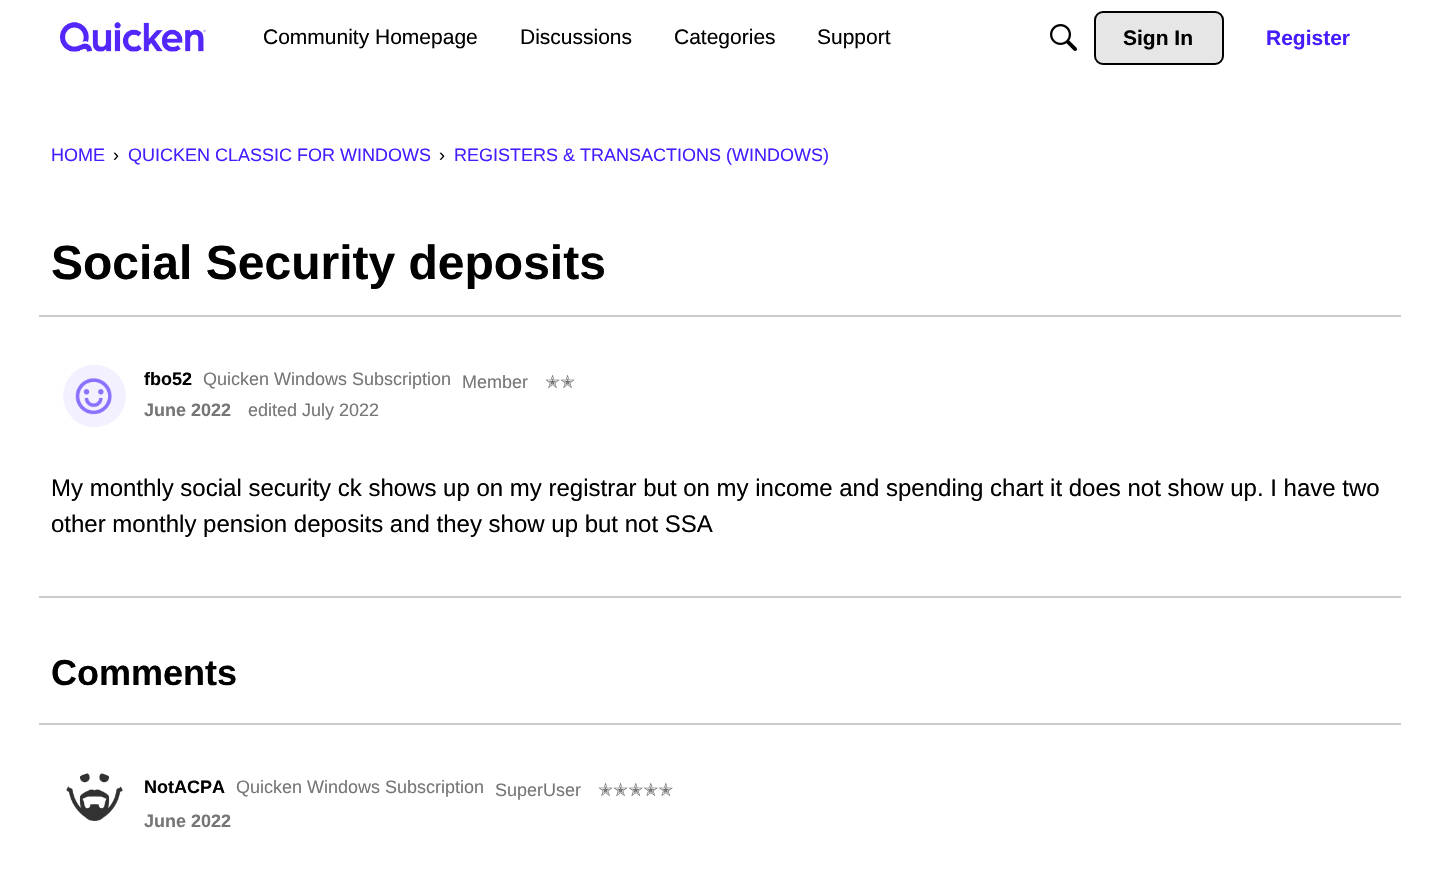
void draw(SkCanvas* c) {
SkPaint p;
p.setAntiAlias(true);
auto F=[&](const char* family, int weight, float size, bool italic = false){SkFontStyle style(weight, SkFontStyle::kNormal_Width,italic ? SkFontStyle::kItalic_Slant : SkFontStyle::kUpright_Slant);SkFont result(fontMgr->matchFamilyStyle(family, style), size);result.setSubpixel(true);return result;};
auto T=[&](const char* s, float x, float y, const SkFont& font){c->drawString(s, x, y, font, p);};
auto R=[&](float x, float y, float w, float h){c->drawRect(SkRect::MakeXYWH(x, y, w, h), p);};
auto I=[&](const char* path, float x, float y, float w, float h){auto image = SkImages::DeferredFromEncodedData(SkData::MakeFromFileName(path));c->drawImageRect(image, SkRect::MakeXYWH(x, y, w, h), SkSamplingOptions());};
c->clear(0xffffffff);
I("1.png",60,22,146,30);
auto f1 = F("Liberation Sans",400,21);
p.setColor(0xff000000);
T("Community Homepage",263,44,f1);
T("Discussions",520,44,f1);
T("Categories",674,44,f1);
T("Support",817,44,f1);
I("2.png",1050,24,27,27);
p.setColor(0xffe6e6e6);
c->drawRoundRect(SkRect::MakeXYWH(1095,12,128,52),8,8,p);
p.setStroke(true);
p.setStrokeWidth(2);
p.setColor(0xff000000);
c->drawRoundRect(SkRect::MakeXYWH(1095,12,128,52),8,8,p);
auto f2 = F("Liberation Sans",700,21);
p.setStroke(false);
T("Sign In",1123,45,f2);
p.setColor(0xff471cff);
T("Register",1266,45,f2);
auto f3 = F("Liberation Sans",400,18);
T("HOME",51,161,f3);
p.setColor(0xff000000);
T("›",113,161,f3);
p.setColor(0xff471cff);
T("QUICKEN CLASSIC FOR WINDOWS",128,161,f3);
p.setColor(0xff000000);
T("›",439,161,f3);
p.setColor(0xff471cff);
T("REGISTERS & TRANSACTIONS (WINDOWS)",454,161,f3);
auto f4 = F("Liberation Sans",700,48);
p.setColor(0xff000000);
T("Social Security deposits",51,279,f4);
p.setColor(0xffcccccc);
R(39,315,1362,2);
I("3.png",63,365,63,62);
auto f5 = F("Liberation Sans",700,18);
p.setColor(0xff000000);
T("fbo52",144,385,f5);
p.setColor(0xff767676);
T("Quicken Windows Subscription",203,385,f3);
T("Member",462,388,f3);
auto f6 = F("DejaVu Sans",400,18);
T("✭✭",545,388,f6);
T("June 2022",144,416,f5);
T("edited July 2022",248,416,f3);
auto f7 = F("Liberation Sans",400,24);
p.setColor(0xff000000);
T("My monthly social security ck shows up on my registrar but on my income and spending chart it does not show up. I have two",51,496,f7);
T("other monthly pension deposits and they show up but not SSA",51,532,f7);
p.setColor(0xffcccccc);
R(39,596,1362,2);
auto f8 = F("Liberation Sans",700,36);
p.setColor(0xff000000);
T("Comments",51,685,f8);
p.setColor(0xffcccccc);
R(39,723,1362,2);
I("4.png",66,773,57,48);
p.setColor(0xff000000);
T("NotACPA",144,793,f5);
p.setColor(0xff767676);
T("Quicken Windows Subscription",236,793,f3);
T("SuperUser",495,796,f3);
T("✭✭✭✭✭",598,796,f6);
T("June 2022",144,827,f5);
}
